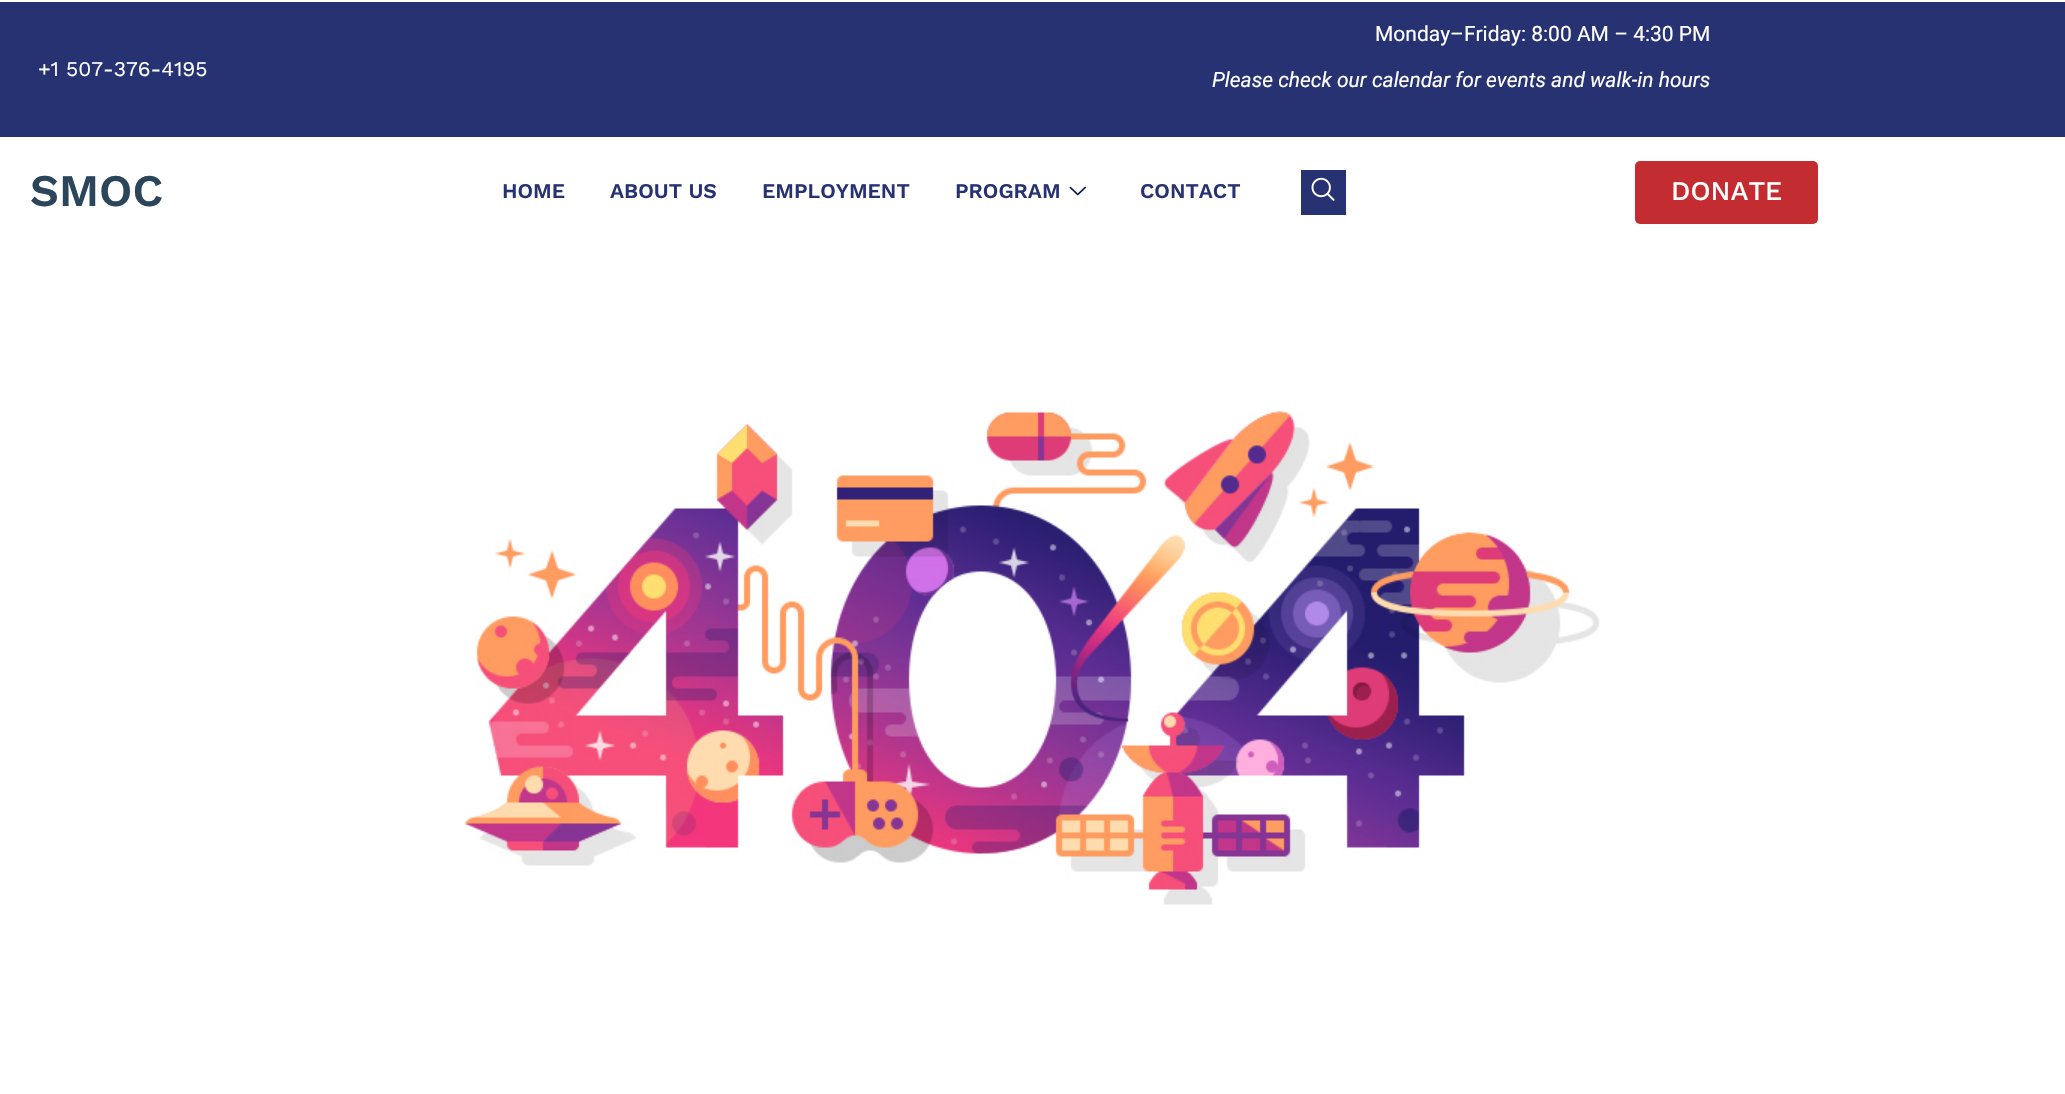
void draw(SkCanvas* c) {
SkPaint p;
p.setAntiAlias(true);
auto F=[&](const char* family, int weight, float size, bool italic = false){SkFontStyle style(weight, SkFontStyle::kNormal_Width,italic ? SkFontStyle::kItalic_Slant : SkFontStyle::kUpright_Slant);SkFont result(fontMgr->matchFamilyStyle(family, style), size);result.setSubpixel(true);return result;};
auto T=[&](const char* s, float x, float y, const SkFont& font){c->drawString(s, x, y, font, p);};
auto R=[&](float x, float y, float w, float h){c->drawRect(SkRect::MakeXYWH(x, y, w, h), p);};
auto Q=[&](float x, float y, float w, float h, float radius){c->drawRoundRect(SkRect::MakeXYWH(x, y, w, h), radius, radius, p);};
auto I=[&](const char* path, float x, float y, float w, float h){auto image = SkImages::DeferredFromEncodedData(SkData::MakeFromFileName(path));c->drawImageRect(image, SkRect::MakeXYWH(x, y, w, h), SkSamplingOptions());};
c->clear(0xffffffff);
p.setColor(0xff273272);
R(0,2,2065,135);
auto f1 = F("Work Sans",400,21);
p.setColor(0xffffffff);
T("+1 507-376-4195",38,76,f1);
auto f2 = F("Roboto",400,21);
T("Monday–Friday: 8:00 AM – 4:30 PM",1375,41,f2);
auto f3 = F("Roboto",400,21,true);
T("Please check our calendar for events and walk-in hours",1212,87,f3);
auto f4 = F("Work Sans",600,45);
p.setColor(0xff2b465b);
T("SMOC",30,206,f4);
auto f5 = F("Work Sans",600,21);
p.setColor(0xff273272);
T("HOME",502,198,f5);
T("ABOUT US",610,198,f5);
T("EMPLOYMENT",762,198,f5);
T("PROGRAM",955,198,f5);
I("1.png",1069,186,17,10);
T("CONTACT",1140,198,f5);
R(1301,170,45,45);
I("2.png",1311,177,24,24);
p.setColor(0xffc32c31);
Q(1635,161,183,63,5);
auto f6 = F("Work Sans",500,27);
p.setColor(0xffffffff);
T("DONATE",1671,200,f6);
I("3.png",464,411,1136,494);
}
